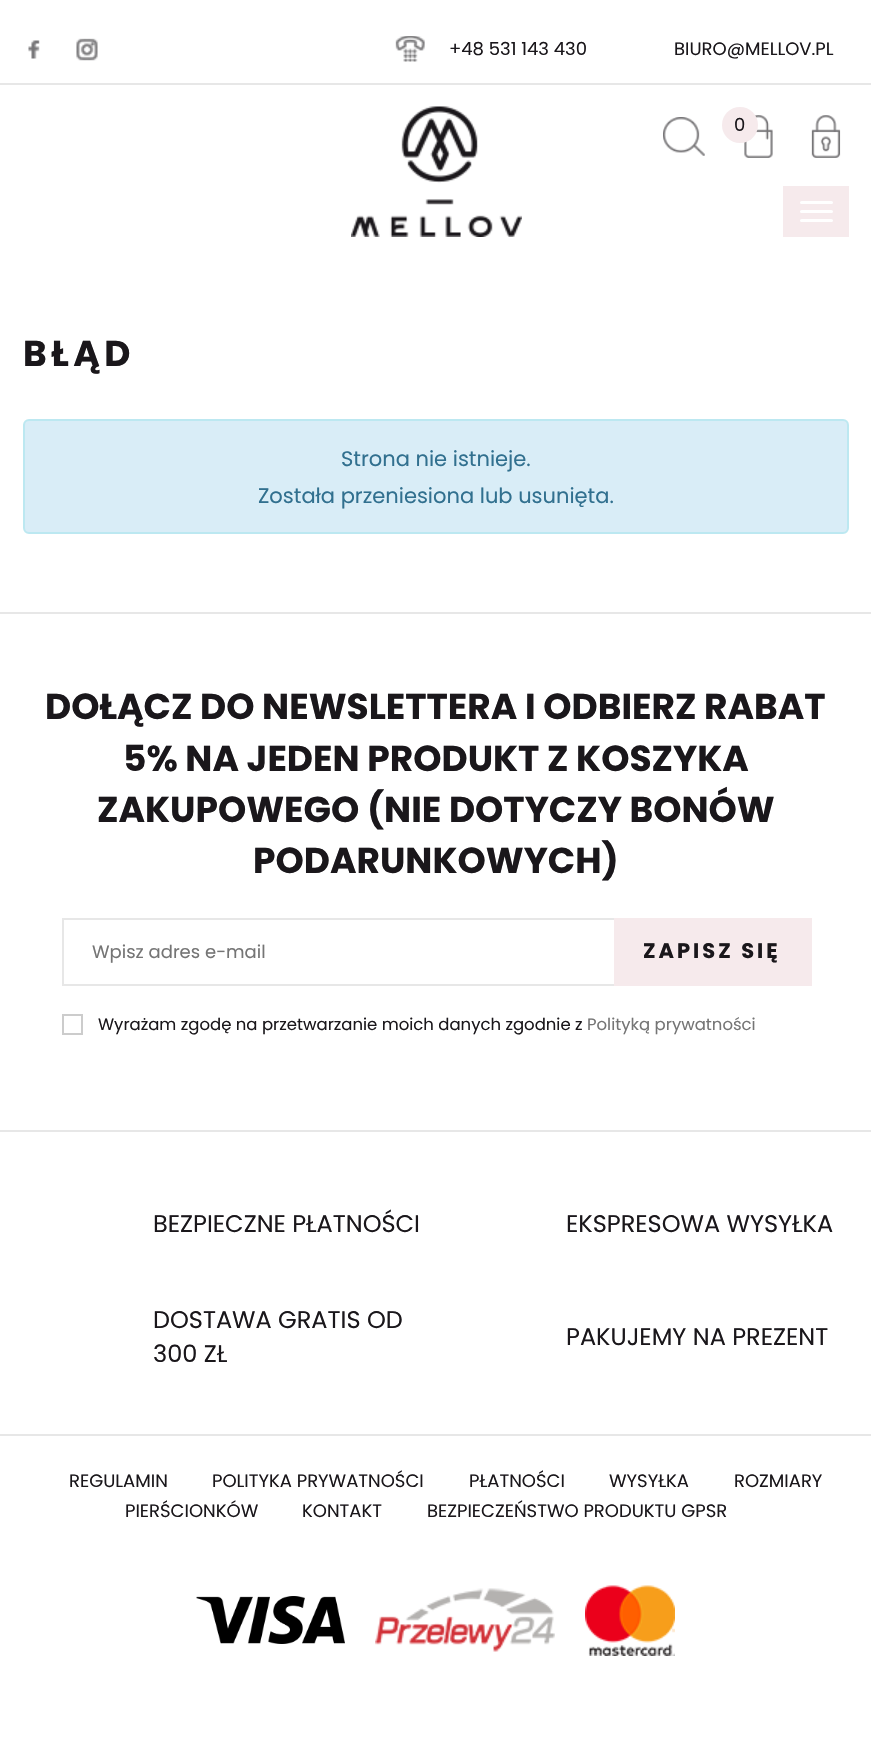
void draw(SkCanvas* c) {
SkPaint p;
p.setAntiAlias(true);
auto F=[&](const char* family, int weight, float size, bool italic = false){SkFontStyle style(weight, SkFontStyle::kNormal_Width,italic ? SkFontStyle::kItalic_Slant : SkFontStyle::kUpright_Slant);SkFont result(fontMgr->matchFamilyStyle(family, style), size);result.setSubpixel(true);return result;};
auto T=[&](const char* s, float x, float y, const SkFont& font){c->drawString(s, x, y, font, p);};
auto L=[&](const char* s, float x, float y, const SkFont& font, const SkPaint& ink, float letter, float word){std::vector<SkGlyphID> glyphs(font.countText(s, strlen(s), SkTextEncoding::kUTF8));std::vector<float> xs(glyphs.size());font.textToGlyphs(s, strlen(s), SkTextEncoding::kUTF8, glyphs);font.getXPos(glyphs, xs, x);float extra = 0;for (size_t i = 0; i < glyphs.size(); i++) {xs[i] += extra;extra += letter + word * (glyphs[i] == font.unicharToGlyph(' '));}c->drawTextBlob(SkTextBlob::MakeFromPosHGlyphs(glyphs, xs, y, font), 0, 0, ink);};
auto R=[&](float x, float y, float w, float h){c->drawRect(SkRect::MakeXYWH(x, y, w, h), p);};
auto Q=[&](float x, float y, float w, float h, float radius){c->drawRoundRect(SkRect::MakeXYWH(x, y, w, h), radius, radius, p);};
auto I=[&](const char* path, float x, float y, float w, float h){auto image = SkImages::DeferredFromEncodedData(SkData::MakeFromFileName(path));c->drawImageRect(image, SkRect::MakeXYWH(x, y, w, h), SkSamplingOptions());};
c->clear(0xffffffff);
p.setColor(0xffe7e7e7);
R(0,83,871,2);
I("1.png",28,40,12,19);
I("2.png",76,38,22,23);
I("3.png",395,36,30,26);
auto f1 = F("Poppins",400,18);
p.setColor(0xff1a171b);
T("+48 531 143 430",449,55,f1);
T("BIURO@MELLOV.PL",674,55,f1);
I("4.png",351,106,171,131);
I("5.png",663,117,42,39);
I("6.png",744,115,29,43);
p.setColor(0xfff6eaec);
c->drawCircle(740,125,18,p);
p.setColor(0xff1a171b);
T("0",734,131,f1);
I("7.png",811,115,30,43);
p.setColor(0xfff6eaec);
R(783,186,66,51);
p.setColor(0xffffffff);
Q(800,201,33,3,1.5);
Q(800,210,33,3,1.5);
Q(800,219,33,3,1.5);
p.setColor(0xffe7e7e7);
R(0,612,871,2);
auto f2 = F("Poppins",700,36);
p.setColor(0xff1a171b);
L("BŁĄD",23,366,f2,p,4.5,0);
p.setColor(0xffd9edf7);
c->drawRoundRect(SkRect::MakeXYWH(24,420,824,113),5,5,p);
p.setStroke(true);
p.setStrokeWidth(2);
p.setColor(0xffbce8f1);
c->drawRoundRect(SkRect::MakeXYWH(24,420,824,113),5,5,p);
auto f3 = F("Poppins",400,21);
p.setStroke(false);
p.setColor(0xff31708f);
T("Strona nie istnieje.",341,466,f3);
T("Została przeniesiona lub usunięta.",258,503,f3);
p.setColor(0xffe7e7e7);
R(0,1130,871,2);
p.setColor(0xff1a171b);
T("DOŁĄCZ DO NEWSLETTERA I ODBIERZ RABAT",45,719,f2);
T("5% NA JEDEN PRODUKT Z KOSZYKA",123,771,f2);
T("ZAKUPOWEGO (NIE DOTYCZY BONÓW",97,822,f2);
T("PODARUNKOWYCH)",253,873,f2);
p.setStroke(true);
p.setColor(0xffe7e7e7);
c->drawRect(SkRect::MakeXYWH(63,919,748,66),p);
p.setStroke(false);
p.setColor(0xff757575);
T("Wpisz adres e-mail",92,958,f1);
p.setColor(0xfff6eaec);
R(614,918,198,68);
auto f4 = F("Poppins",700,21);
p.setColor(0xff1a171b);
L("ZAPISZ SIĘ",643,958,f4,p,3,0);
p.setStroke(true);
p.setColor(0xffcccccc);
c->drawRect(SkRect::MakeXYWH(63,1015,19,19),p);
auto f5 = F("Poppins",400,16.5);
p.setStroke(false);
p.setColor(0xff1a171b);
T("Wyrażam zgodę na przetwarzanie moich danych zgodnie z",98,1030,f5);
p.setColor(0xff757575);
T("Polityką prywatności",587,1030,f5);
auto f6 = F("Poppins",400,24);
p.setColor(0xff1a171b);
T("BEZPIECZNE PŁATNOŚCI",153,1232,f6);
T("EKSPRESOWA WYSYŁKA",566,1232,f6);
T("DOSTAWA GRATIS OD",153,1328,f6);
T("300 ZŁ",153,1362,f6);
T("PAKUJEMY NA PREZENT",566,1345,f6);
p.setColor(0xffe7e7e7);
R(0,1434,871,2);
p.setColor(0xff1a171b);
T("REGULAMIN",69,1487,f1);
T("POLITYKA PRYWATNOŚCI",212,1487,f1);
T("PŁATNOŚCI",469,1487,f1);
T("WYSYŁKA",609,1487,f1);
T("ROZMIARY",734,1487,f1);
T("PIERŚCIONKÓW",125,1517,f1);
T("KONTAKT",302,1517,f1);
T("BEZPIECZEŃSTWO PRODUKTU GPSR",427,1517,f1);
I("8.png",196,1596,149,48);
I("9.png",375,1588,180,64);
I("10.png",585,1585,90,71);
}
